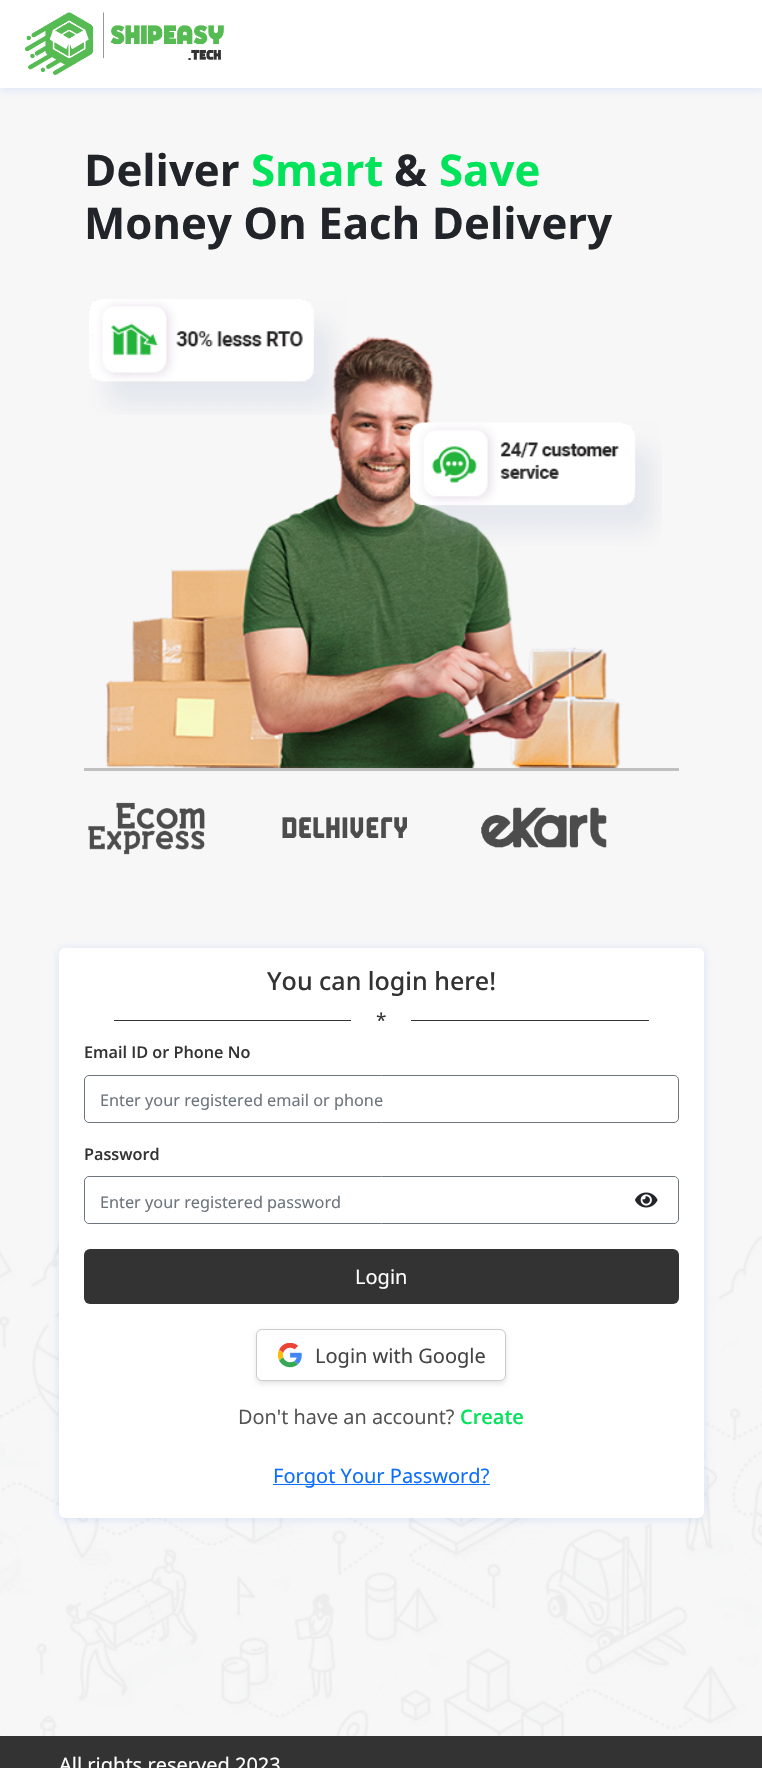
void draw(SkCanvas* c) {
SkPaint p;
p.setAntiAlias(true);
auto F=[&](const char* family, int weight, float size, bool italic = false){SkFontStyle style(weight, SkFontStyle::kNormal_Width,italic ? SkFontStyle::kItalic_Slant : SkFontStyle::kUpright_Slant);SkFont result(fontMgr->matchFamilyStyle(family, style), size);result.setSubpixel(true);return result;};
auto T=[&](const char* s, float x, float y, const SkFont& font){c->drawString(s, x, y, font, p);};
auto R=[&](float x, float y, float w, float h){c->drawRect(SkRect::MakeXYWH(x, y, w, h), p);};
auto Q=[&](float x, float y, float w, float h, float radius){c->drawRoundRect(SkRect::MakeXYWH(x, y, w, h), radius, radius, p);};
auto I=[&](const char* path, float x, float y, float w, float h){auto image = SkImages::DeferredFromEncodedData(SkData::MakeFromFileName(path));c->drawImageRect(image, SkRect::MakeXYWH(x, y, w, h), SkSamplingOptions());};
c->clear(0xfff7f7f7);
I("1.png",0,1236,762,500);
p.setColor(0x334e8ffb);
p.setMaskFilter(SkMaskFilter::MakeBlur(kNormal_SkBlurStyle, 5));
c->drawRect(SkRect::MakeXYWH(0,1,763,88),p);
p.setMaskFilter(nullptr);
p.setColor(0xffffffff);
R(0,0,762,88);
I("2.png",25,12,199,63);
auto f1 = F("Open Sans",700,43.75);
p.setColor(0xff212529);
T("Deliver",84,186,f1);
p.setColor(0xff00e35a);
T("Smart",251,186,f1);
p.setColor(0xff212529);
T("&",394,186,f1);
p.setColor(0xff00e35a);
T("Save",439,186,f1);
p.setColor(0xff212529);
T("Money On Each Delivery",84,239,f1);
p.setColor(0xffc0c0c0);
R(84,768,595,3);
I("5.png",105,336,516,432);
I("3.png",89,299,259,116);
I("4.png",409,422,253,124);
I("6.png",88,802,117,53);
I("7.png",282,817,125,21);
I("8.png",481,807,126,41);
p.setColor(0x334e8ffb);
p.setMaskFilter(SkMaskFilter::MakeBlur(kNormal_SkBlurStyle, 5));
c->drawRoundRect(SkRect::MakeXYWH(59,949,645,570),6,6,p);
p.setMaskFilter(nullptr);
p.setColor(0xffffffff);
Q(59,948,645,570,6);
auto f2 = F("Noto Sans",500,25);
p.setColor(0xff333333);
T("You can login here!",267,990,f2);
R(114,1020,237,1);
auto f3 = F("Noto Sans",400,19);
T("*",376,1027,f3);
R(411,1020,238,1);
auto f4 = F("Open Sans",600,16.25);
T("Email ID or Phone No",84,1058,f4);
p.setStroke(true);
p.setStrokeWidth(1);
p.setColor(0xff6c757d);
c->drawRoundRect(SkRect::MakeXYWH(84.5,1075.5,594,47),4.5,4.5,p);
auto f5 = F("Noto Sans",400,16.25);
p.setStroke(false);
T("Enter your registered email or phone",100,1106,f5);
p.setColor(0xff333333);
T("Password",84,1160,f4);
p.setStroke(true);
p.setColor(0xff6c757d);
c->drawRoundRect(SkRect::MakeXYWH(84.5,1176.5,594,47),4.5,4.5,p);
p.setStroke(false);
p.setColor(0xffffffff);
Q(85,1178,530,45,5);
p.setColor(0xff6c757d);
T("Enter your registered password",100,1208,f5);
I("9.png",635,1192,23,16);
p.setColor(0xff333333);
Q(84,1249,595,55,6);
auto f6 = F("Noto Sans",400,20);
p.setColor(0xffffffff);
T("Login",355,1284,f6);
p.setColor(0x1a000000);
p.setMaskFilter(SkMaskFilter::MakeBlur(kNormal_SkBlurStyle, 2.5));
c->drawRoundRect(SkRect::MakeXYWH(256,1331,250,53),6,6,p);
p.setMaskFilter(nullptr);
p.setColor(0xffffffff);
c->drawRoundRect(SkRect::MakeXYWH(256.5,1329.5,249,51),5.5,5.5,p);
p.setStroke(true);
p.setColor(0xffcccccc);
c->drawRoundRect(SkRect::MakeXYWH(256.5,1329.5,249,51),5.5,5.5,p);
I("10.png",278,1343,24,25);
p.setStroke(false);
p.setColor(0xff444444);
T("Login with Google",315,1363,f6);
auto f7 = F("Open Sans",400,20);
p.setColor(0xff525252);
T("Don't have an account?",238,1424,f7);
auto f8 = F("Open Sans",600,20);
p.setColor(0xff00e35a);
T("Create",460,1424,f8);
p.setColor(0xff0d6efd);
R(273,1484,217,1);
T("Forgot Your Password?",273,1483,f6);
p.setColor(0xff333333);
R(0,1736,762,32);
p.setColor(0xffffffff);
T("All rights reserved 2023",59,1772,f6);
}
